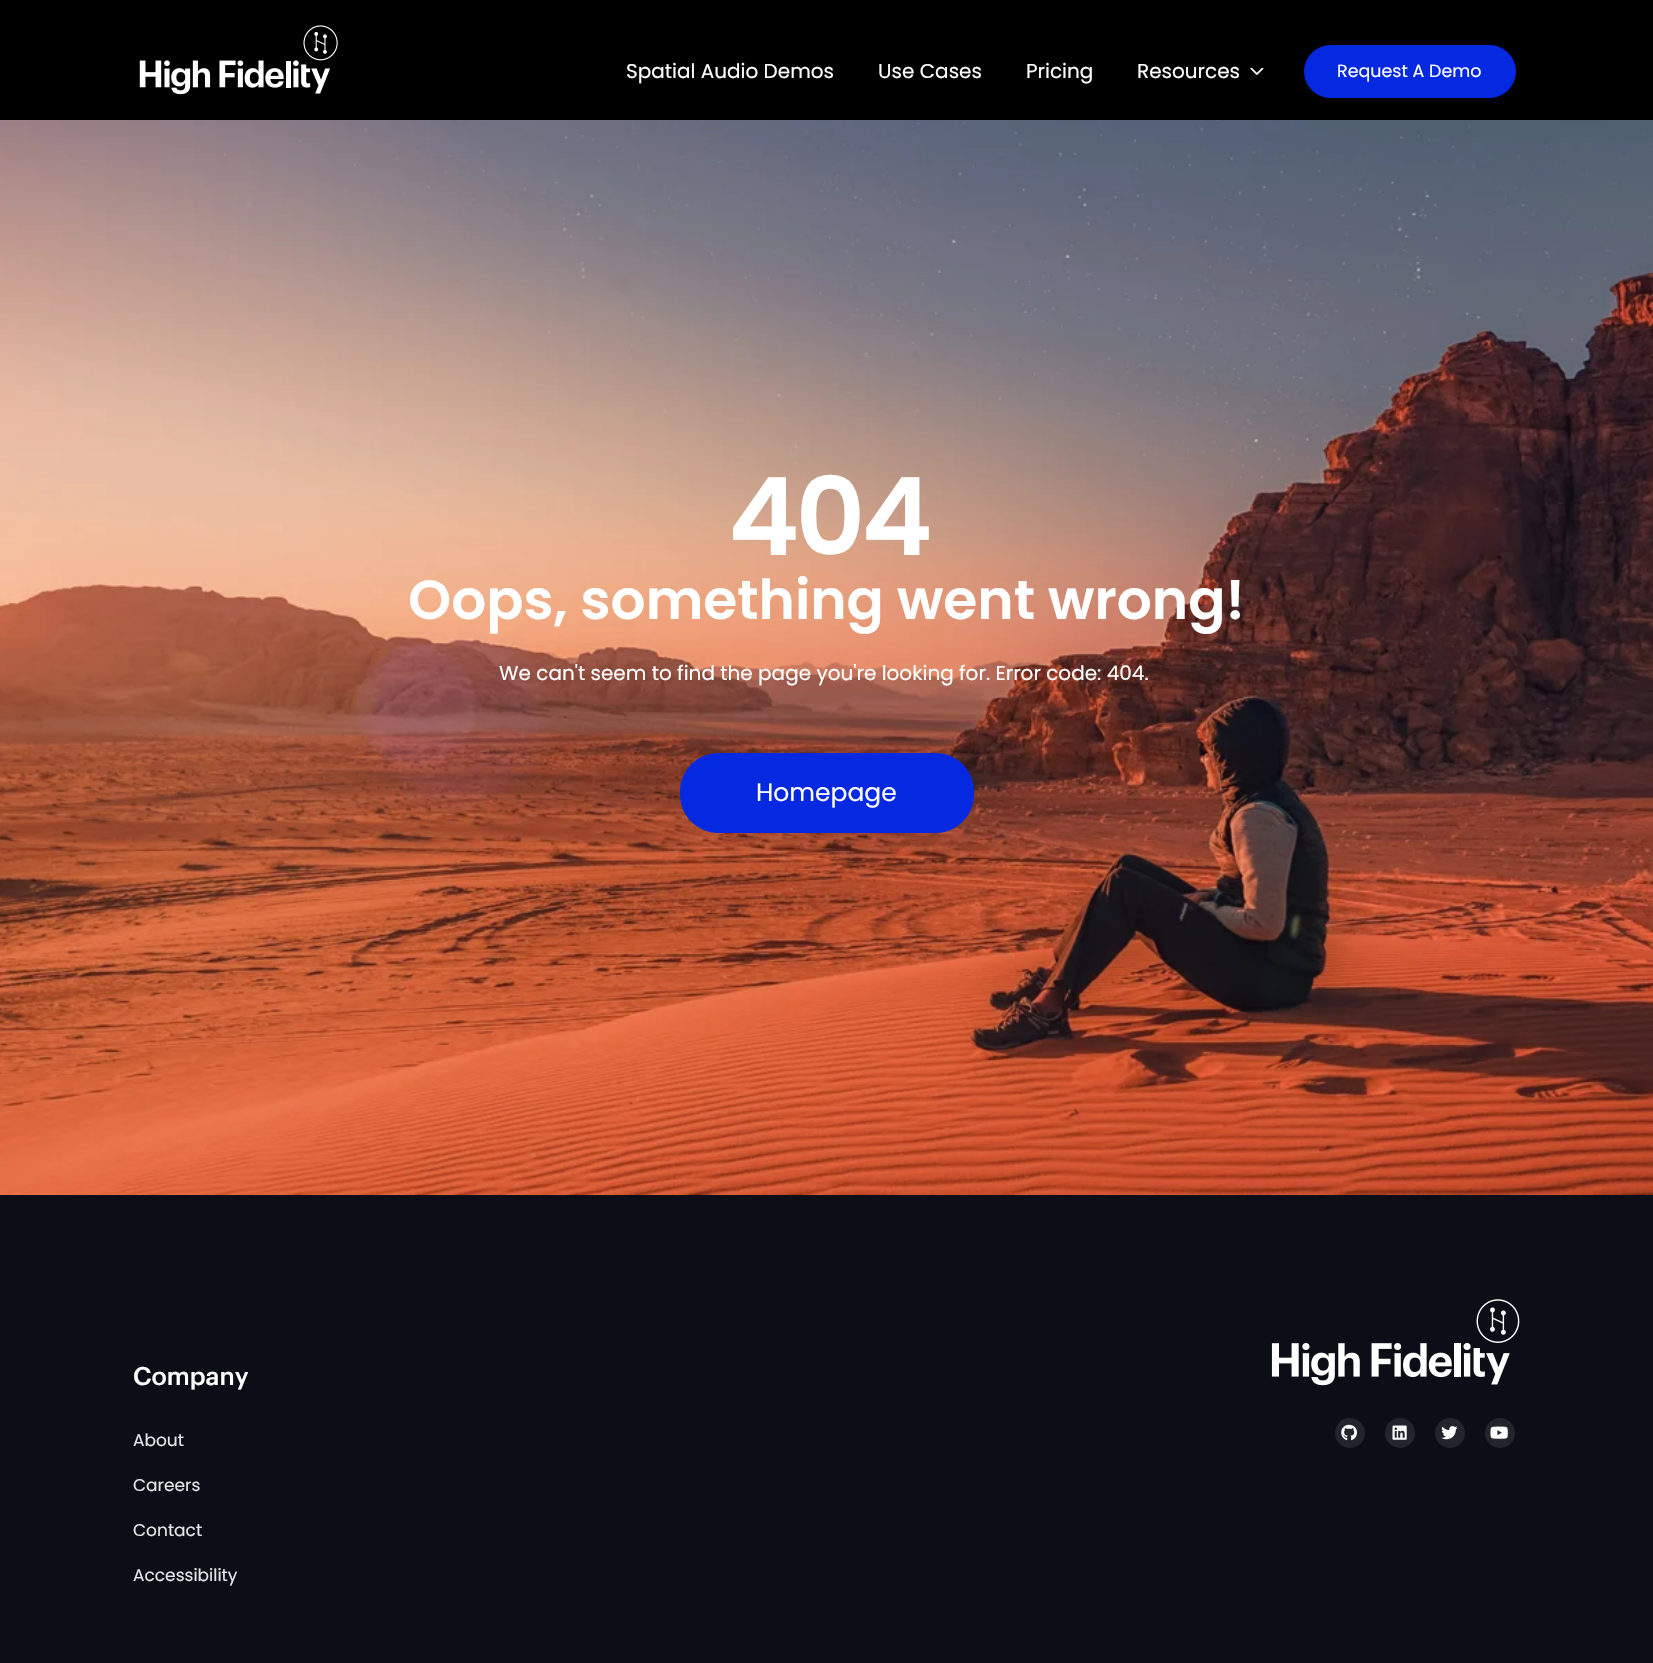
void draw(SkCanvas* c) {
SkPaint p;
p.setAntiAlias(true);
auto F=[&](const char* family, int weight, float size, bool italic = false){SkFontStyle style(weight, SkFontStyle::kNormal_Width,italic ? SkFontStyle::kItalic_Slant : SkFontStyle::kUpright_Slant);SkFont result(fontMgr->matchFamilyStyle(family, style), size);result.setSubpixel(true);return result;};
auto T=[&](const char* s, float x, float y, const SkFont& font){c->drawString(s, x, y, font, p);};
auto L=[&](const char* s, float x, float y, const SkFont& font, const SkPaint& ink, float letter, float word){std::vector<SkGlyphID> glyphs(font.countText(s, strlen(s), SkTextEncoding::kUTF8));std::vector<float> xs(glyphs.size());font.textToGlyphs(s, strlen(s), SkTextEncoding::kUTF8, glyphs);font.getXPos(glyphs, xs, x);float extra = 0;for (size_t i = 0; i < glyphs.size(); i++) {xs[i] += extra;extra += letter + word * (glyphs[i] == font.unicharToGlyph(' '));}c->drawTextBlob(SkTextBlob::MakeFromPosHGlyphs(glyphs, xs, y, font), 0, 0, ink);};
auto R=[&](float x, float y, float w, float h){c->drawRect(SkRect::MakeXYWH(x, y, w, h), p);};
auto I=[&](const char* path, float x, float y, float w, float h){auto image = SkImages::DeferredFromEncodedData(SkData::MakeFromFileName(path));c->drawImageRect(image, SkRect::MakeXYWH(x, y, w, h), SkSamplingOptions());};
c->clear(0xff0b0d17);
p.setColor(0xff000000);
R(0,0,1653,120);
I("1.png",139,25,199,70);
auto f1 = F("Poppins",400,20);
p.setColor(0xffffffff);
T("Spatial Audio Demos",626,78,f1);
T("Use Cases",878,78,f1);
T("Pricing",1026,78,f1);
T("Resources",1137,78,f1);
I("2.png",1250,68,14,7);
p.setColor(0xff0429e1);
c->drawRoundRect(SkRect::MakeXYWH(1304.5,45.5,211,52),26,26,p);
p.setStroke(true);
p.setStrokeWidth(1);
c->drawRoundRect(SkRect::MakeXYWH(1304.5,45.5,211,52),26,26,p);
auto f2 = F("Poppins",400,17.5);
p.setStroke(false);
p.setColor(0xffffffff);
T("Request A Demo",1337,77,f2);
I("3.png",0,120,1653,1075);
auto f3 = F("Poppins",600,108);
L("404",728,555,f3,p,-4,0);
auto f4 = F("Poppins",600,55);
T("Oops, something went wrong!",408,619,f4);
T("We can't seem to find the page you're looking for. Error code: 404.",499,680,f1);
p.setColor(0xff0429e1);
c->drawRoundRect(SkRect::MakeXYWH(680.5,753.5,293,79),37.5,37.5,p);
p.setStroke(true);
c->drawRoundRect(SkRect::MakeXYWH(680.5,753.5,293,79),37.5,37.5,p);
auto f5 = F("Poppins",400,25);
p.setStroke(false);
p.setColor(0xffffffff);
T("Homepage",756,801,f5);
auto f6 = F("Graphik",500,25);
T("Company",133,1385,f6);
auto f7 = F("Poppins",400,17);
p.setColor(0xffe7e7e7);
T("About",133,1446,f7);
T("Careers",133,1491,f7);
T("Contact",133,1536,f7);
T("Accessibility",133,1581,f7);
I("4.png",1271,1299,249,87);
p.setColor(0xff23252e);
c->drawCircle(1350,1433,15,p);
I("5.png",1341,1424,16,17);
c->drawCircle(1400,1433,15,p);
I("6.png",1392,1425,15,15);
c->drawCircle(1450,1433,15,p);
I("7.png",1441,1426,17,14);
c->drawCircle(1500,1433,15,p);
I("8.png",1490,1426,18,13);
}
